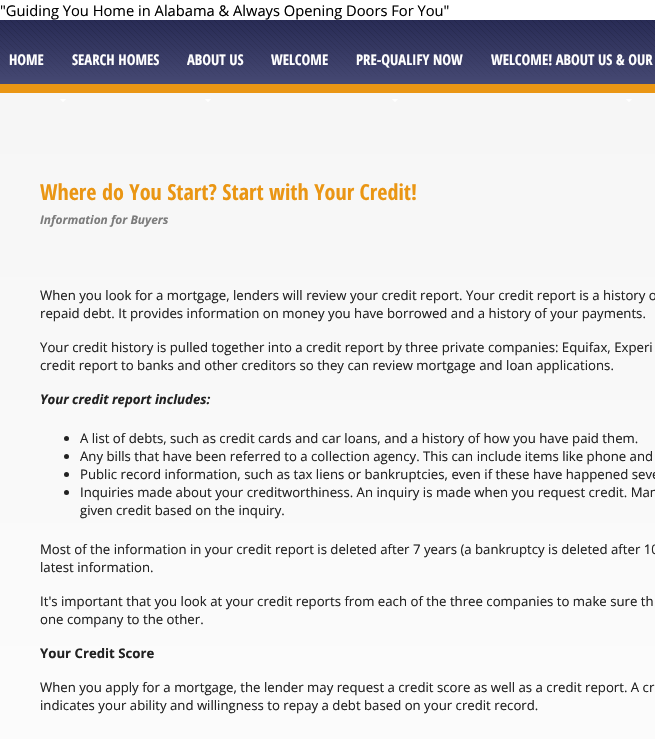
void draw(SkCanvas* c) {
SkPaint p;
p.setAntiAlias(true);
auto F=[&](const char* family, int weight, float size, bool italic = false){SkFontStyle style(weight, SkFontStyle::kNormal_Width,italic ? SkFontStyle::kItalic_Slant : SkFontStyle::kUpright_Slant);SkFont result(fontMgr->matchFamilyStyle(family, style), size);result.setSubpixel(true);return result;};
auto T=[&](const char* s, float x, float y, const SkFont& font){c->drawString(s, x, y, font, p);};
auto R=[&](float x, float y, float w, float h){c->drawRect(SkRect::MakeXYWH(x, y, w, h), p);};
auto I=[&](const char* path, float x, float y, float w, float h){auto image = SkImages::DeferredFromEncodedData(SkData::MakeFromFileName(path));c->drawImageRect(image, SkRect::MakeXYWH(x, y, w, h), SkSamplingOptions());};
c->clear(0xffffffff);
auto f1 = F("Open Sans",400,14.7);
p.setColor(0xff000000);
T("\"Guiding You Home in Alabama & Always Opening Doors For You\"",0,16,f1);
{
const SkColor colors[] = {0xff282b55,0xff464973};
const float stops[] = {0,1};
const SkPoint ends[] = {{500,20}, {500,84}};
p.setShader(SkGradientShader::MakeLinear(ends, colors, stops, 2, SkTileMode::kClamp));
p.setAlpha(255);
}
R(0,20,655,64);
p.setShader(nullptr);
p.setColor(0xffea9614);
R(0,84,655,9);
I("1.png",0,20,655,56);
auto f2 = F("Open Sans Condensed",700,14.7);
p.setColor(0xffffffff);
T("HOME",9,65,f2);
T("SEARCH HOMES",72,65,f2);
T("ABOUT US",187,65,f2);
T("WELCOME",271,65,f2);
T("PRE-QUALIFY NOW",356,65,f2);
T("WELCOME! ABOUT US & OUR",491,65,f2);
{
const SkColor colors[] = {0xfff6f6f6,0xffffffff};
const float stops[] = {0,1};
const SkPoint ends[] = {{500,93}, {500,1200}};
p.setShader(SkGradientShader::MakeLinear(ends, colors, stops, 2, SkTileMode::kClamp));
p.setAlpha(255);
}
R(0,93,655,646);
I("2.png",60,99,6,3);
I("2.png",205,99,6,3);
I("2.png",392,99,6,3);
I("2.png",626,99,6,3);
auto f3 = F("Open Sans Condensed",700,22.1);
p.setShader(nullptr);
p.setColor(0xffea9614);
T("Where do You Start? Start with Your Credit!",40,200,f3);
auto f4 = F("Open Sans",700,11.9,true);
p.setColor(0xff7c7c7c);
T("Information for Buyers",40,224,f4);
auto f5 = F("Open Sans",400,13.2);
p.setColor(0xff222222);
T("When you look for a mortgage, lenders will review your credit report. Your credit report is a history o",40,300,f5);
T("repaid debt. It provides information on money you have borrowed and a history of your payments.",40,318,f5);
T("Your credit history is pulled together into a credit report by three private companies: Equifax, Experi",40,352,f5);
T("credit report to banks and other creditors so they can review mortgage and loan applications.",40,370,f5);
auto f6 = F("Open Sans",700,13.2,true);
T("Your credit report includes:",40,404,f6);
c->drawCircle(66.5,438.5,2.5,p);
T("A list of debts, such as credit cards and car loans, and a history of how you have paid them.",80,443,f5);
c->drawCircle(66.5,456.5,2.5,p);
T("Any bills that have been referred to a collection agency. This can include items like phone and",80,461,f5);
c->drawCircle(66.5,474.5,2.5,p);
T("Public record information, such as tax liens or bankruptcies, even if these have happened seve",80,479,f5);
c->drawCircle(66.5,492.5,2.5,p);
T("Inquiries made about your creditworthiness. An inquiry is made when you request credit. Man",80,497,f5);
T("given credit based on the inquiry.",80,515,f5);
T("Most of the information in your credit report is deleted after 7 years (a bankruptcy is deleted after 10",40,554,f5);
T("latest information.",40,572,f5);
T("It's important that you look at your credit reports from each of the three companies to make sure th",40,606,f5);
T("one company to the other.",40,624,f5);
auto f7 = F("Open Sans",700,13.2);
T("Your Credit Score",40,658,f7);
T("When you apply for a mortgage, the lender may request a credit score as well as a credit report. A cr",40,692,f5);
T("indicates your ability and willingness to repay a debt based on your credit record.",40,710,f5);
}
